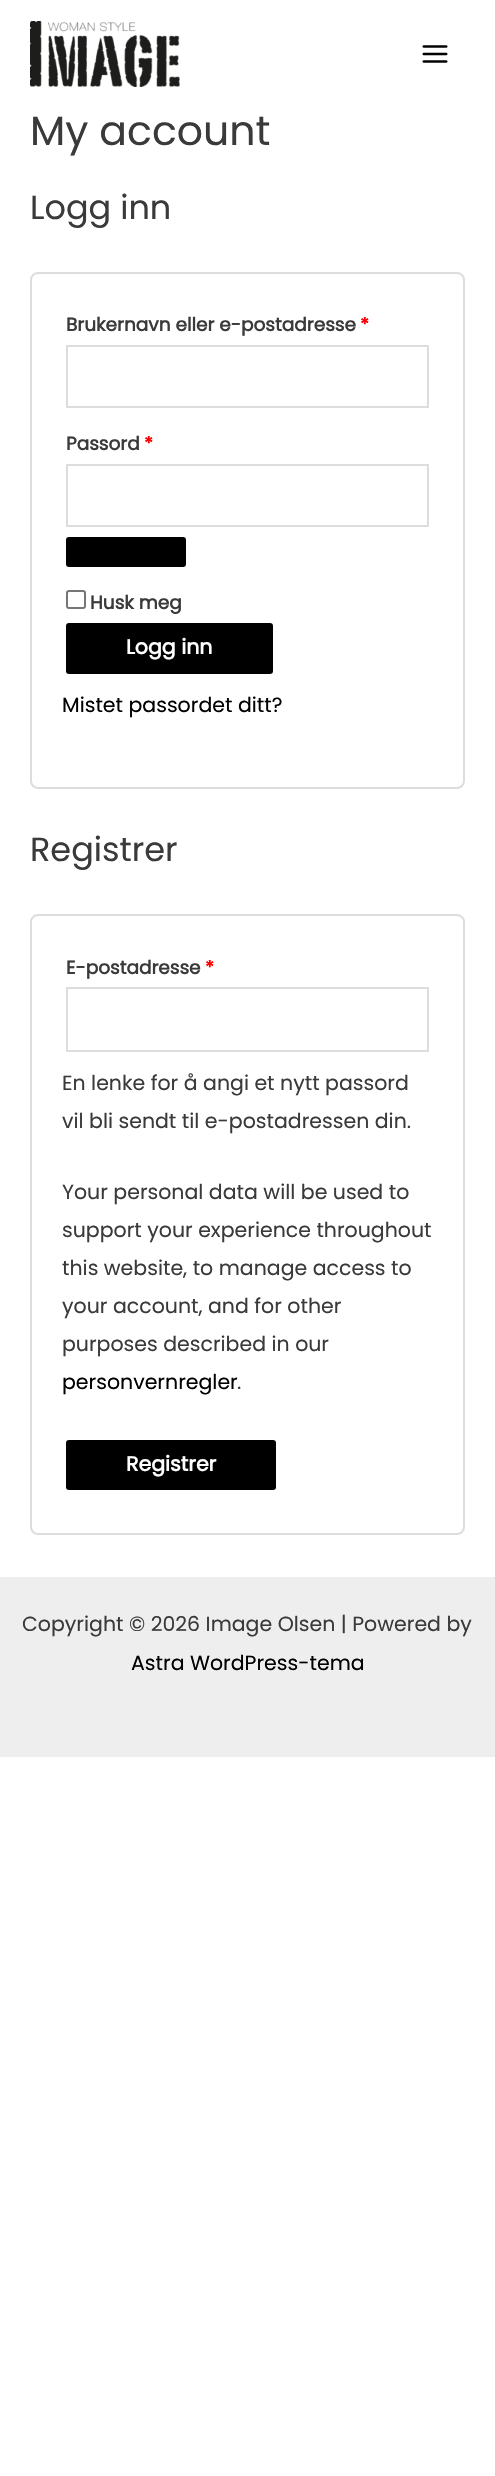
void draw(SkCanvas* c) {
SkPaint p;
p.setAntiAlias(true);
auto F=[&](const char* family, int weight, float size, bool italic = false){SkFontStyle style(weight, SkFontStyle::kNormal_Width,italic ? SkFontStyle::kItalic_Slant : SkFontStyle::kUpright_Slant);SkFont result(fontMgr->matchFamilyStyle(family, style), size);result.setSubpixel(true);return result;};
auto T=[&](const char* s, float x, float y, const SkFont& font){c->drawString(s, x, y, font, p);};
auto R=[&](float x, float y, float w, float h){c->drawRect(SkRect::MakeXYWH(x, y, w, h), p);};
auto Q=[&](float x, float y, float w, float h, float radius){c->drawRoundRect(SkRect::MakeXYWH(x, y, w, h), radius, radius, p);};
auto I=[&](const char* path, float x, float y, float w, float h){auto image = SkImages::DeferredFromEncodedData(SkData::MakeFromFileName(path));c->drawImageRect(image, SkRect::MakeXYWH(x, y, w, h), SkSamplingOptions());};
c->clear(0xffffffff);
I("1.png",30,21,150,66);
I("2.png",422,45,26,18);
auto f1 = F("Poppins",400,41);
p.setColor(0xff3a3a3a);
T("My account",30,145,f1);
auto f2 = F("Poppins",400,33.5);
T("Logg inn",30,219,f2);
p.setStroke(true);
p.setStrokeWidth(2);
p.setColor(0xffdddddd);
c->drawRoundRect(SkRect::MakeXYWH(31,273,433,515),7,7,p);
auto f3 = F("Poppins",700,18.5);
p.setStroke(false);
p.setColor(0xff3a3a3a);
T("Brukernavn eller e-postadresse",66,331,f3);
p.setColor(0xffff0000);
T("*",360,331,f3);
p.setStroke(true);
p.setColor(0xffdddddd);
c->drawRect(SkRect::MakeXYWH(67,346,361,61),p);
p.setStroke(false);
p.setColor(0xff3a3a3a);
T("Passord",66,450,f3);
p.setColor(0xffff0000);
T("*",144,450,f3);
p.setStroke(true);
p.setColor(0xffdddddd);
c->drawRect(SkRect::MakeXYWH(67,465,361,61),p);
p.setStroke(false);
p.setColor(0xff000000);
Q(66,537,120,30,3);
p.setStroke(true);
p.setColor(0xff767676);
c->drawRoundRect(SkRect::MakeXYWH(67,591,18,17),2,2,p);
p.setStroke(false);
p.setColor(0xff3a3a3a);
T("Husk meg",90,609,f3);
p.setColor(0xff000000);
Q(66,623,207,51,3);
auto f4 = F("Poppins",700,20.5);
p.setColor(0xffffffff);
T("Logg inn",126,654,f4);
auto f5 = F("Poppins",400,20.5);
p.setColor(0xff000000);
T("Mistet passordet ditt?",62,712,f5);
p.setColor(0xff3a3a3a);
T("Registrer",30,861,f2);
p.setStroke(true);
p.setColor(0xffdddddd);
c->drawRoundRect(SkRect::MakeXYWH(31,915,433,619),7,7,p);
p.setStroke(false);
p.setColor(0xff3a3a3a);
T("E-postadresse",66,974,f3);
p.setColor(0xffff0000);
T("*",205,974,f3);
p.setStroke(true);
p.setColor(0xffdddddd);
c->drawRect(SkRect::MakeXYWH(67,988,361,63),p);
p.setStroke(false);
p.setColor(0xff3a3a3a);
T("En lenke for å angi et nytt passord",62,1090,f5);
T("vil bli sendt til e-postadressen din.",62,1128,f5);
T("Your personal data will be used to",62,1199,f5);
T("support your experience throughout",62,1237,f5);
T("this website, to manage access to",62,1275,f5);
T("your account, and for other",62,1313,f5);
T("purposes described in our",62,1351,f5);
p.setColor(0xff000000);
T("personvernregler",62,1389,f5);
p.setColor(0xff3a3a3a);
T(".",237,1389,f5);
p.setColor(0xff000000);
Q(66,1440,210,50,3);
p.setColor(0xffffffff);
T("Registrer",126,1471,f4);
p.setColor(0xffeeeeee);
R(0,1577,495,180);
p.setColor(0xff3a3a3a);
T("Copyright © 2026 Image Olsen | Powered by",22,1631,f5);
p.setColor(0xff000000);
T("Astra WordPress-tema",131,1670,f5);
}
